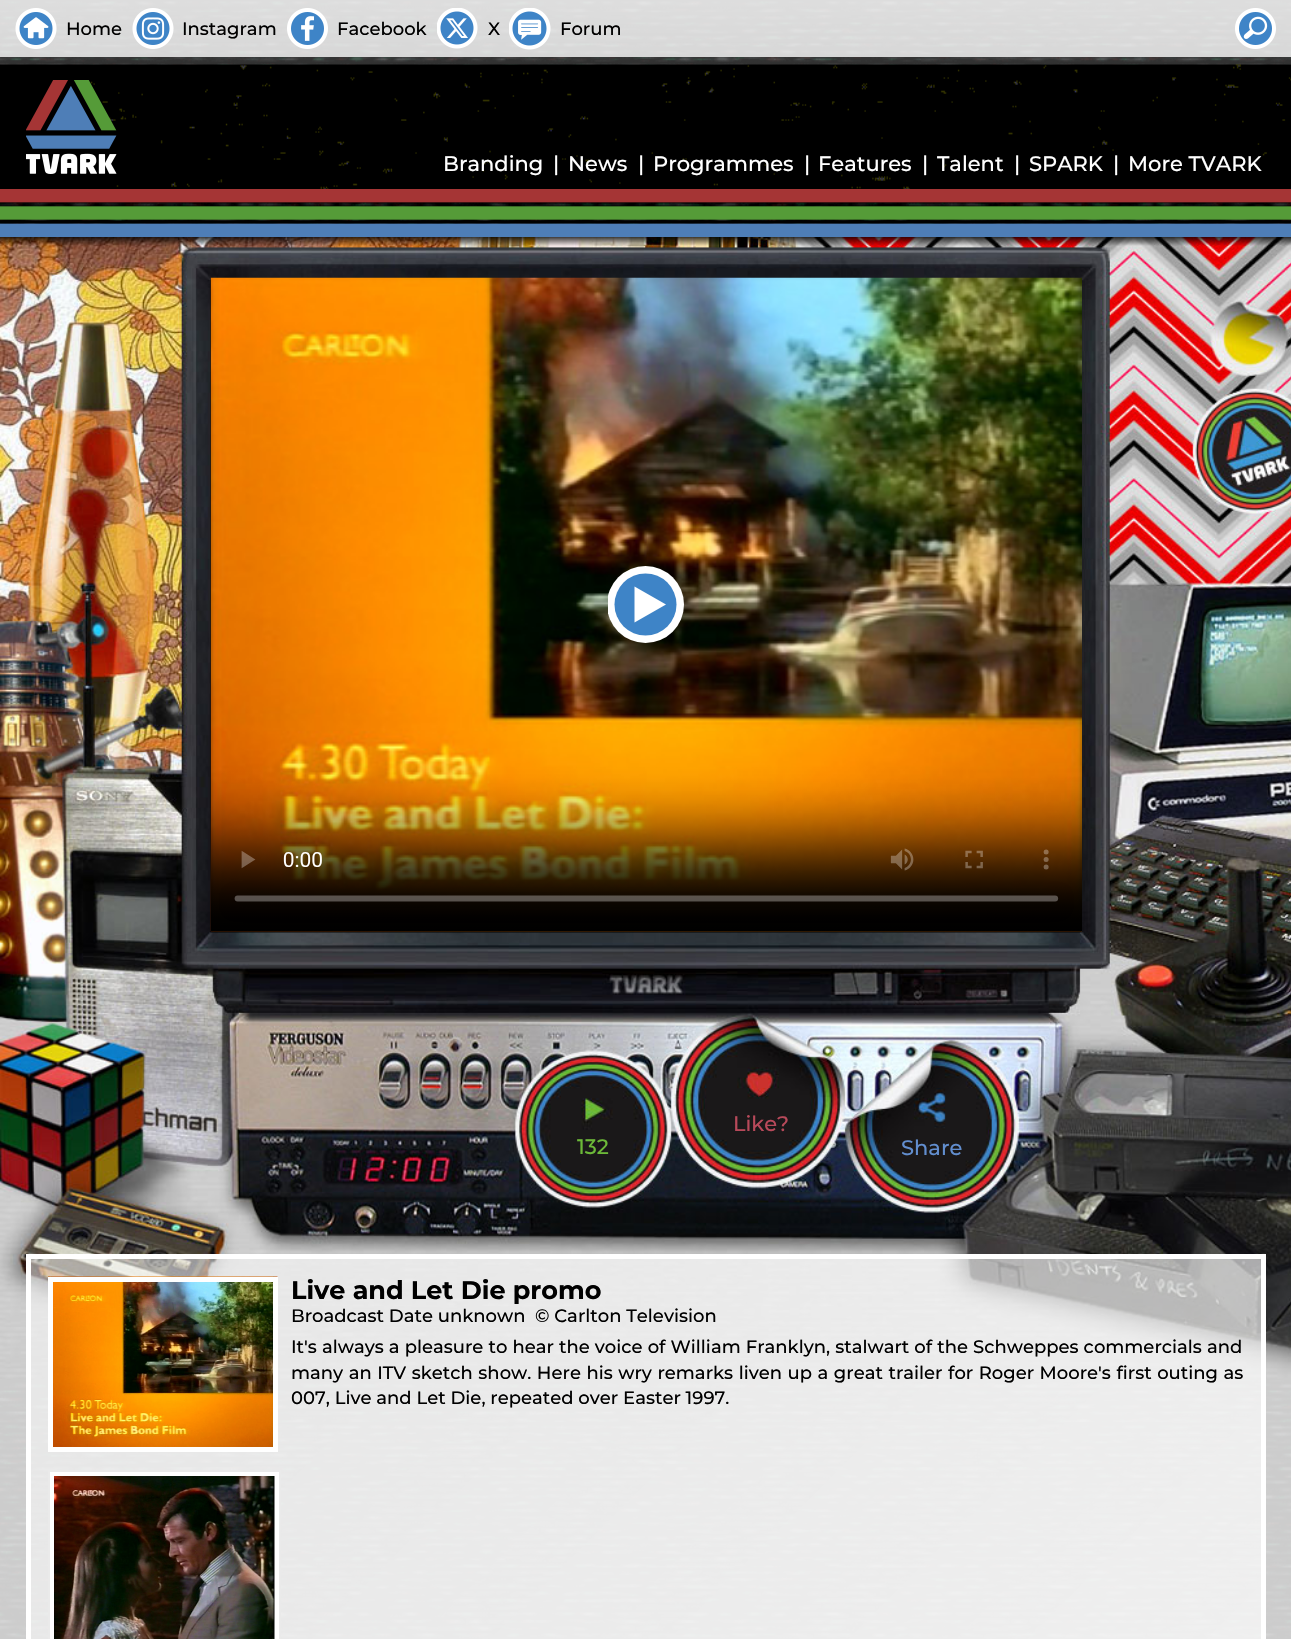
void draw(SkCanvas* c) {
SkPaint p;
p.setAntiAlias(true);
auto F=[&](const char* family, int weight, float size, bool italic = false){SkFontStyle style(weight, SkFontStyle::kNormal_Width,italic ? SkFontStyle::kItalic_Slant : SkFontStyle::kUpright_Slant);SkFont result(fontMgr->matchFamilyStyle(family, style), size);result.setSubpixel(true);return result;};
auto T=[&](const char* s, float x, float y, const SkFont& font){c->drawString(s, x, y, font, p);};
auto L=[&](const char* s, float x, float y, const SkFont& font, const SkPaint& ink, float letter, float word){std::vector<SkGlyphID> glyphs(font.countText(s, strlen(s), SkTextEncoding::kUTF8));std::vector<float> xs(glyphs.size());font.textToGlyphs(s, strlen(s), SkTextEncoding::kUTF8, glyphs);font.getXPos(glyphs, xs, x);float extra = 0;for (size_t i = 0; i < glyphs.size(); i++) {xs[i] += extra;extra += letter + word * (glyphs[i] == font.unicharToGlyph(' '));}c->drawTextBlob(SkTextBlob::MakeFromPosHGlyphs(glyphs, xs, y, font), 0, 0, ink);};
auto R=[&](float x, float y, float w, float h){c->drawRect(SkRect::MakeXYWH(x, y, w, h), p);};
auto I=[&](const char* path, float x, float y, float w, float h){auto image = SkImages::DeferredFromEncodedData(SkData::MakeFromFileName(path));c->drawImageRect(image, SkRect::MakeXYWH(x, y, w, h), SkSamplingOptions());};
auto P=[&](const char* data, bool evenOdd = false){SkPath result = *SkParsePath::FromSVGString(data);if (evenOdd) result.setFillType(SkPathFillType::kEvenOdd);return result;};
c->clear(0xffffffff);
I("1.png",0,0,1291,1639);
I("2.png",0,0,1291,65);
I("3.png",0,189,1291,48);
p.setColor(0xccffffff);
R(0,0,1291,57);
I("4.png",15,8,42,41);
auto f1 = F("Montserrat",500,18);
p.setColor(0xff000000);
T("Home",66,35,f1);
I("5.png",132,8,42,41);
T("Instagram",182,35,f1);
I("6.png",287,8,41,41);
T("Facebook",337,35,f1);
I("7.png",437,8,41,41);
T("X",488,35,f1);
I("8.png",509,8,42,42);
T("Forum",560,35,f1);
I("9.png",1235,8,41,41);
I("10.png",0,64,1291,125);
I("11.png",26,80,91,94);
auto f2 = F("Montserrat",500,21);
p.setColor(0xffffffff);
T("Branding",443,171,f2);
T("|",553,171,f2);
T("News",568,171,f2);
T("|",638,171,f2);
T("Programmes",653,171,f2);
T("|",804,171,f2);
T("Features",818,171,f2);
T("|",922,171,f2);
T("Talent",937,171,f2);
T("|",1014,171,f2);
T("SPARK",1029,171,f2);
T("|",1113,171,f2);
T("More TVARK",1128,171,f2);
p.setColor(0xccffffff);
R(0,1380,1291,259);
I("12.png",0,237,1291,1143);
p.setColor(0xffb8495a);
T("Like?",733,1131,f2);
p.setColor(0xff6cb938);
T("132",577,1154,f2);
p.setColor(0xff628ecf);
T("Share",901,1155,f2);
{
const SkColor colors[] = {0x80ffffff,0xb3ffffff};
const float stops[] = {0,1};
const SkPoint ends[] = {{189,1099}, {1102,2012}};
p.setShader(SkGradientShader::MakeLinear(ends, colors, stops, 2, SkTileMode::kClamp));
p.setAlpha(255);
}
R(31,1259,1230,380);
p.setStroke(true);
p.setStrokeWidth(5);
p.setShader(nullptr);
p.setColor(0xffffffff);
c->drawRect(SkRect::MakeXYWH(28.5,1256.5,1235,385),p);
I("13.png",210,277,872,655);
c->save();
c->clipRect(SkRect::MakeXYWH(608,566,78,78));
p.setStroke(false);
c->drawCircle(645.5,604.5,38.5,p);
c->restore();
p.setColor(0xff3e84c7);
c->drawCircle(645.5,604.5,31,p);
p.setColor(0xffffffff);
c->drawPath(P("M634.5 622.5l31.5-18l-31.5-18z"),p);
I("14.png",48,1276,230,171);
p.setStroke(true);
c->drawRect(SkRect::MakeXYWH(50.5,1279.5,225,170),p);
auto f3 = F("Montserrat",700,25.5);
p.setStroke(false);
p.setColor(0xff000000);
T("Live and Let Die promo",291,1299,f3);
T("Broadcast Date unknown",291,1322,f1);
T("© Carlton Television",535,1322,f1);
L("It's always a pleasure to hear the voice of William Franklyn, stalwart of the Schweppes commercials and",291,1353,f1,p,0,.25);
L("many an ITV sketch show. Here his wry remarks liven up a great trailer for Roger Moore's first outing as",291,1379,f1,p,0,.7);
T("007, Live and Let Die, repeated over Easter 1997.",291,1404,f1);
p.setColor(0xffffffff);
c->drawRect(SkRect::MakeXYWH(49,1471,231,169),p);
p.setStroke(true);
p.setStrokeWidth(2);
p.setColor(0xffeaeaea);
c->drawRect(SkRect::MakeXYWH(49,1471,231,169),p);
I("15.png",54,1476,221,163);
}
